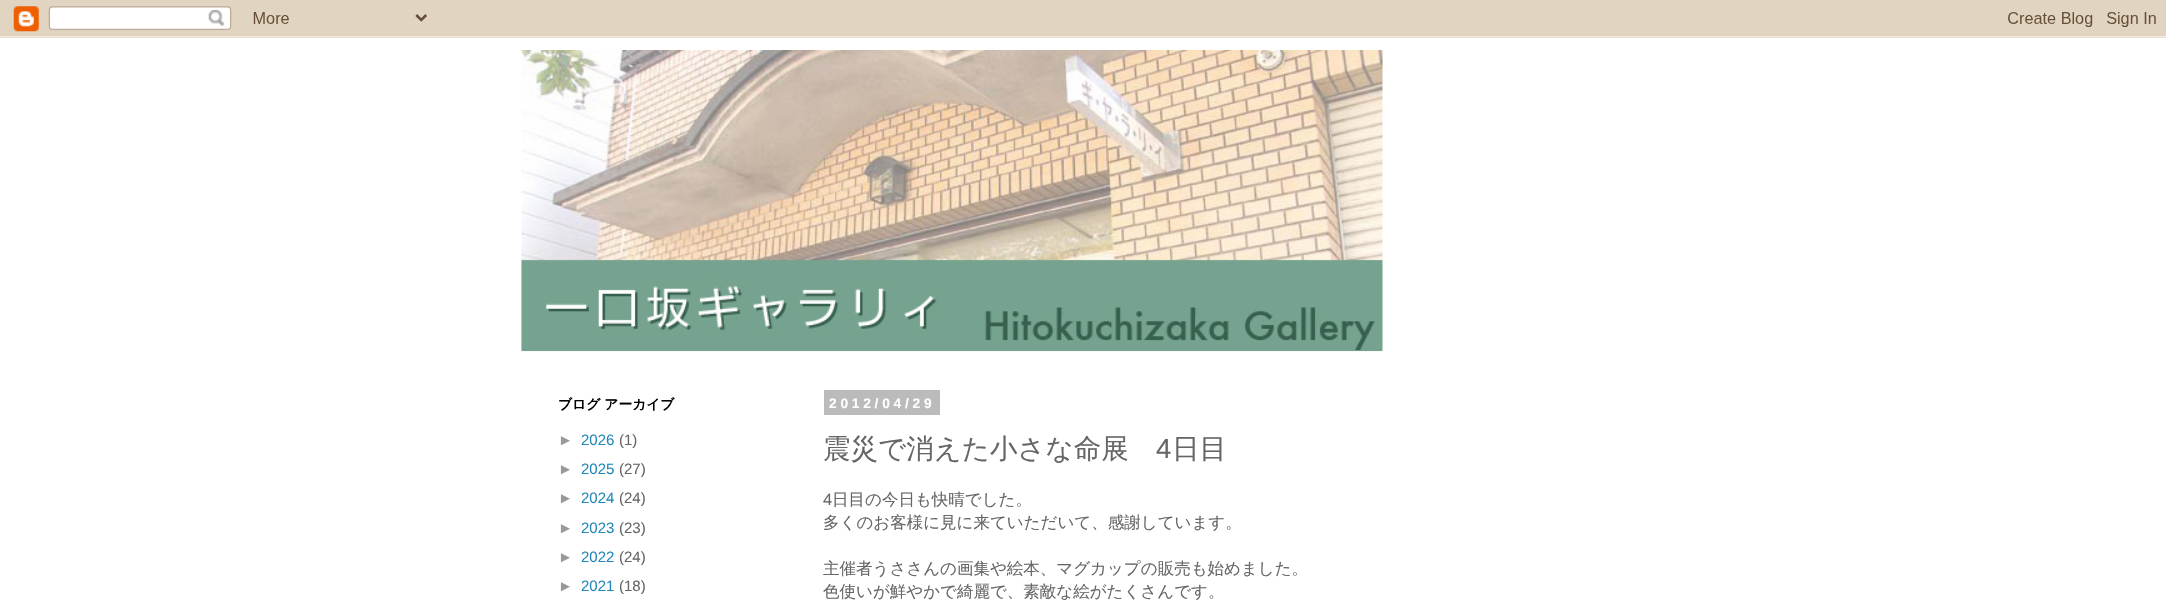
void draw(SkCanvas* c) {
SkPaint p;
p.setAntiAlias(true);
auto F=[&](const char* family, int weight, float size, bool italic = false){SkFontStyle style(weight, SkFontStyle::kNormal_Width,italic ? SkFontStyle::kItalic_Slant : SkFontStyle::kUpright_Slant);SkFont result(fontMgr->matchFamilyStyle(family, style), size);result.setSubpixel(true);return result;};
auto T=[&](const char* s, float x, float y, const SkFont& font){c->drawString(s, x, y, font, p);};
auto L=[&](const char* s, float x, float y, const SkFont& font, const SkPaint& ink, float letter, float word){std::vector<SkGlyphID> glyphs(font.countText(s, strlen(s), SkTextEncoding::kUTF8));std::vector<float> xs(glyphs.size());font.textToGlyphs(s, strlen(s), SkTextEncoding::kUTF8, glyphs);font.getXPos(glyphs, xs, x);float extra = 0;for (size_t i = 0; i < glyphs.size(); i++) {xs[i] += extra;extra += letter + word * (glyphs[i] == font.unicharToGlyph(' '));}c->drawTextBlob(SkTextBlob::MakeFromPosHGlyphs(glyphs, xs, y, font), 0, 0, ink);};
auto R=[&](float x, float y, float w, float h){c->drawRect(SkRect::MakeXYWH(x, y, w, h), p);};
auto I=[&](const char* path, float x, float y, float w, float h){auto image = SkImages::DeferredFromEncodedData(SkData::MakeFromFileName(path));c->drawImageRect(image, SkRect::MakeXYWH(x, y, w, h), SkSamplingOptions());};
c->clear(0xffffffff);
I("1.png",0,0,2166,38);
I("2.png",521,50,862,302);
auto f1 = F("WenQuanYi Zen Hei",700,13.75);
p.setColor(0xff000000);
T("ブログ アーカイブ",558,409,f1);
auto f2 = F("Liberation Sans",400,15);
p.setColor(0xff999999);
T("►",558,445,f2);
p.setColor(0xff2288bb);
T("2026",581,445,f2);
p.setColor(0xff666666);
T("(1)",619,445,f2);
p.setColor(0xff999999);
T("►",558,474,f2);
p.setColor(0xff2288bb);
T("2025",581,474,f2);
p.setColor(0xff666666);
T("(27)",619,474,f2);
p.setColor(0xff999999);
T("►",558,503,f2);
p.setColor(0xff2288bb);
T("2024",581,503,f2);
p.setColor(0xff666666);
T("(24)",619,503,f2);
p.setColor(0xff999999);
T("►",558,533,f2);
p.setColor(0xff2288bb);
T("2023",581,533,f2);
p.setColor(0xff666666);
T("(23)",619,533,f2);
p.setColor(0xff999999);
T("►",558,562,f2);
p.setColor(0xff2288bb);
T("2022",581,562,f2);
p.setColor(0xff666666);
T("(24)",619,562,f2);
p.setColor(0xff999999);
T("►",558,591,f2);
p.setColor(0xff2288bb);
T("2021",581,591,f2);
p.setColor(0xff666666);
T("(18)",619,591,f2);
p.setColor(0xffbbbbbb);
R(824,390,116,25);
auto f3 = F("Liberation Sans",700,13.75);
p.setColor(0xffffffff);
L("2012/04/29",829,408,f3,p,3.75,0);
auto f4 = F("WenQuanYi Zen Hei",500,27.5);
p.setColor(0xff666666);
T("震災で消えた小さな命展",823,458,f4);
auto f5 = F("Liberation Sans",400,27.5);
T("4",1156,458,f5);
T("日目",1172,458,f4);
auto f6 = F("Liberation Sans",400,16.5);
T("4",823,505,f6);
auto f7 = F("WenQuanYi Zen Hei",500,16.5);
T("日目の今日も快晴でした。",832,505,f7);
T("多くのお客様に見に来ていただいて、感謝しています。",823,528,f7);
T("主催者うささんの画集や絵本、マグカップの販売も始めました。",823,574,f7);
T("色使いが鮮やかで綺麗で、素敵な絵がたくさんです。",823,597,f7);
}
